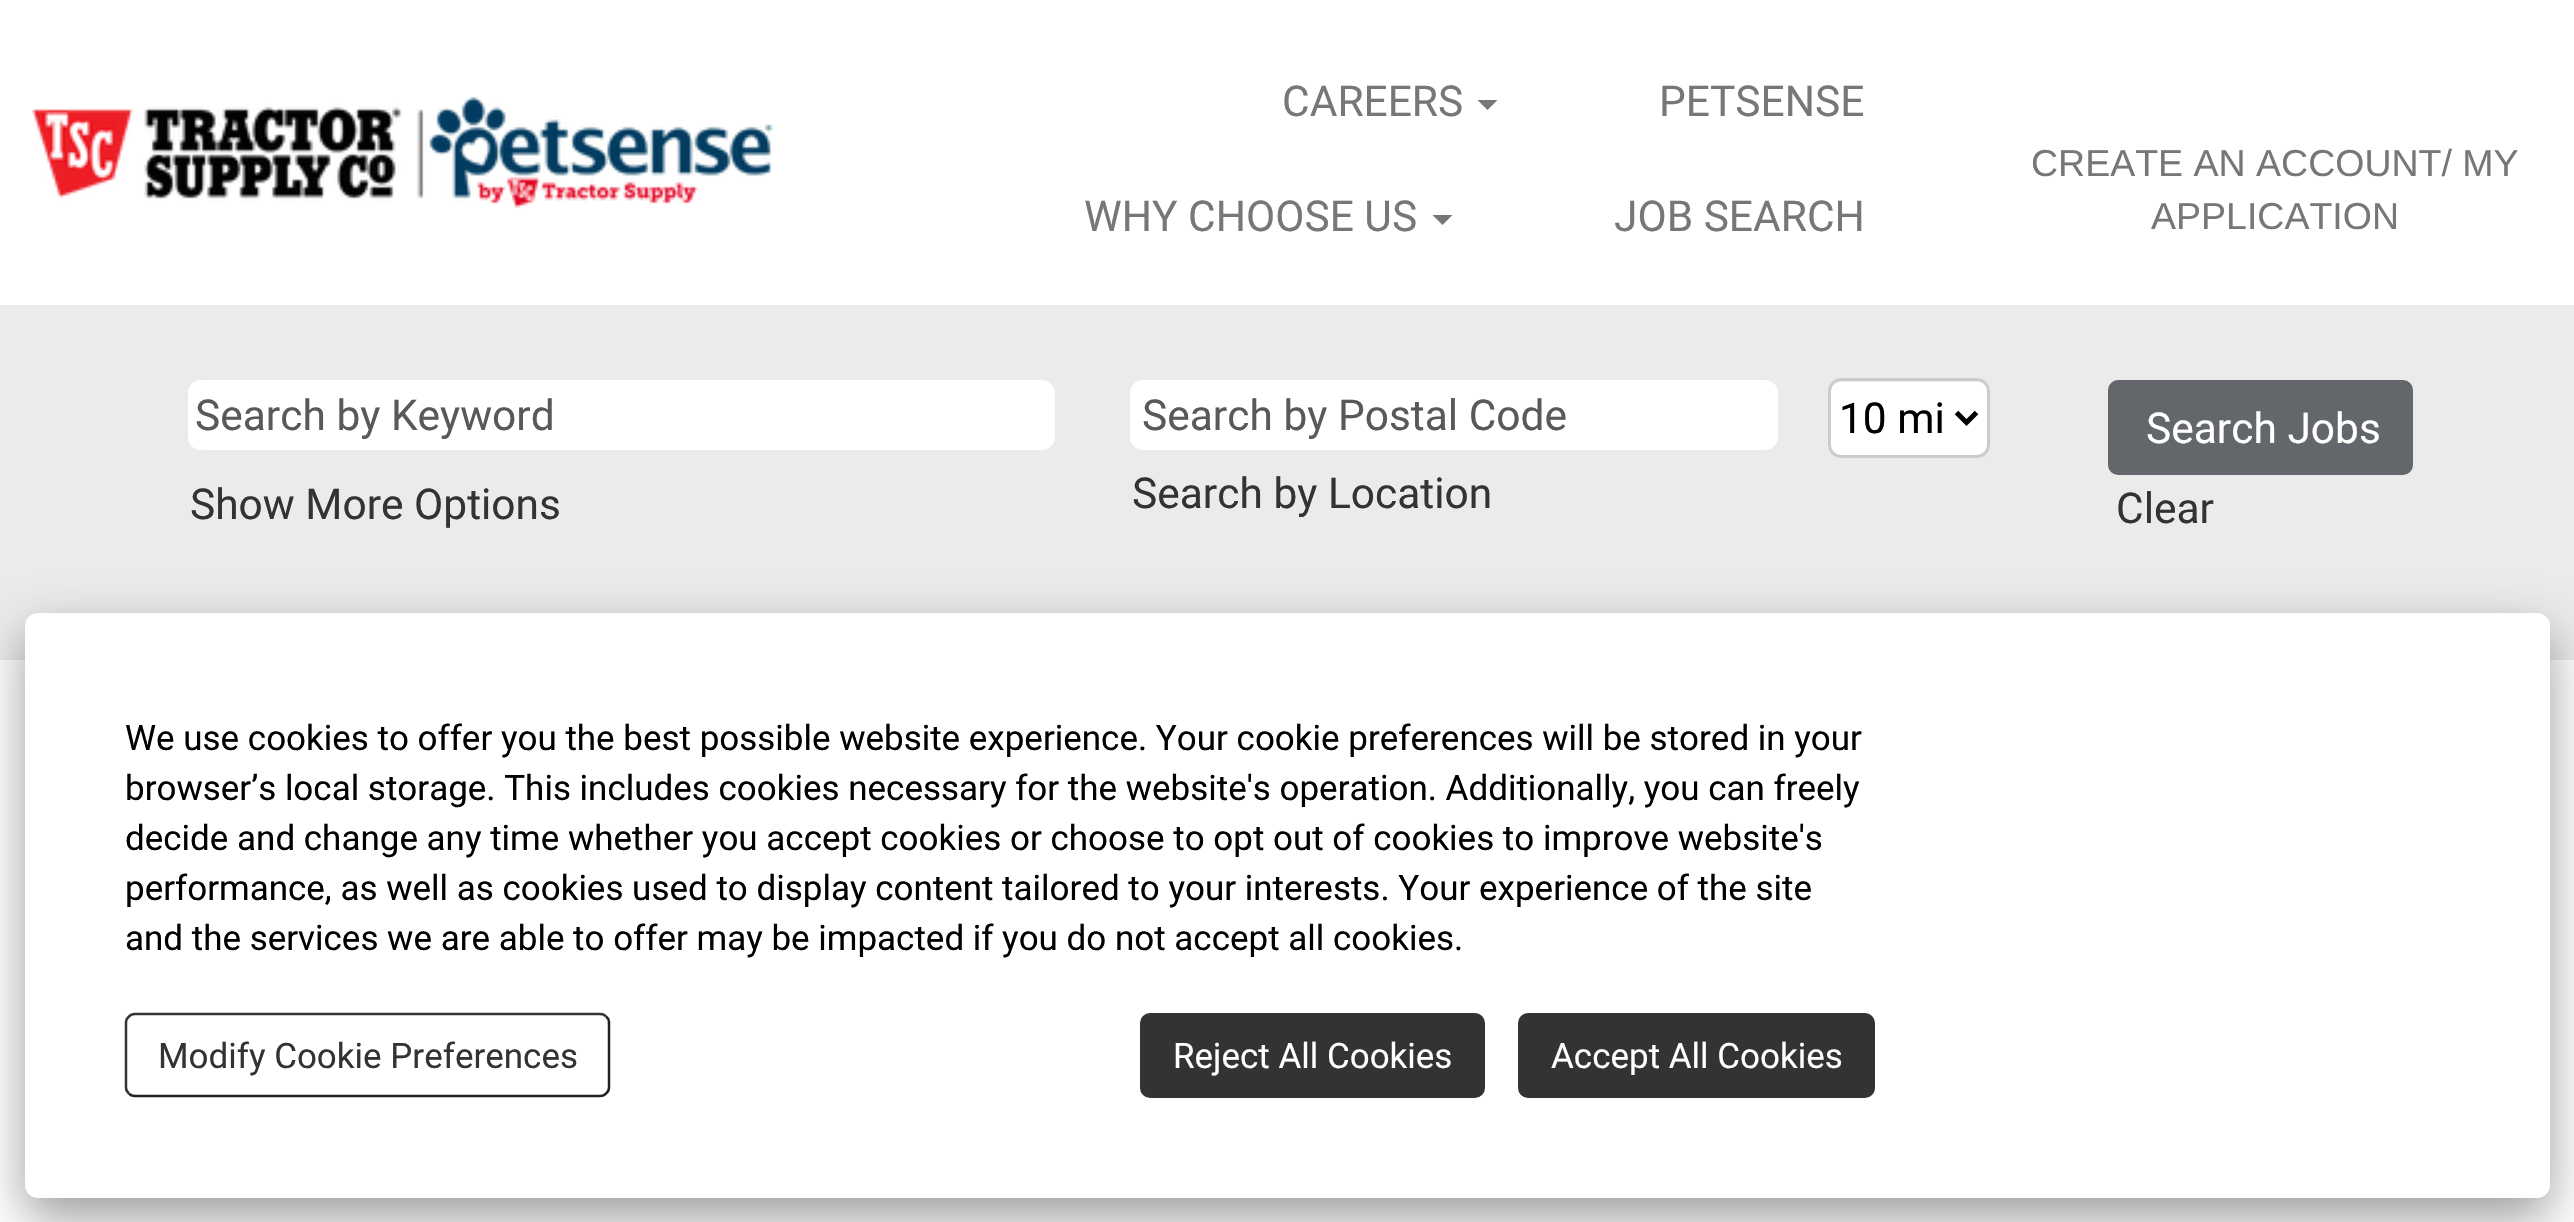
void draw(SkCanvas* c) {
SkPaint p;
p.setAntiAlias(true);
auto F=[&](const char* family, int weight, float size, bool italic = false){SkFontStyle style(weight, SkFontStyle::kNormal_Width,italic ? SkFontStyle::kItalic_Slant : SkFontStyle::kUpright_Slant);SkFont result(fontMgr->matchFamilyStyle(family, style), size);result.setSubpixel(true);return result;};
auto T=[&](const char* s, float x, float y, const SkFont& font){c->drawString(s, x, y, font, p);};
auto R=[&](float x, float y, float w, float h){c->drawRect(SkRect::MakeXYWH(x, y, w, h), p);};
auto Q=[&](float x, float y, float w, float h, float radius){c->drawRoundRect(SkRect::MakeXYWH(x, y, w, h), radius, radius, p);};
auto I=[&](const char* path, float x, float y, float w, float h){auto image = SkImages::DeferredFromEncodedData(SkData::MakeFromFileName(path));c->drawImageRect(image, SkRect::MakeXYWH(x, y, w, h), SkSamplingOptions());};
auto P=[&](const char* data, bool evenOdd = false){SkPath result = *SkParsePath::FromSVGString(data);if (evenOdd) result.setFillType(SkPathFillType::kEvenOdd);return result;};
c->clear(0xffffffff);
I("1.png",32,96,742,113);
auto f1 = F("Roboto",400,42.5);
p.setColor(0xff777777);
T("CAREERS",1282,116,f1);
c->drawPath(P("M1477.5 100h20l-10 10z"),p);
T("PETSENSE",1659,116,f1);
T("WHY CHOOSE US",1084,231,f1);
c->drawPath(P("M1432.5 215h20l-10 10z"),p);
T("JOB SEARCH",1614,231,f1);
auto f2 = F("Liberation Sans",400,37.5);
T("CREATE AN ACCOUNT/ MY",2031,176,f2);
T("APPLICATION",2151,229,f2);
p.setColor(0xffebebeb);
R(0,305,2574,355);
p.setColor(0xffffffff);
Q(188,380,867,70,13);
p.setColor(0xff595959);
T("Search by Keyword",195,430,f1);
p.setColor(0xffffffff);
Q(1130,380,648,70,13);
p.setColor(0xff595959);
T("Search by Postal Code",1142,430,f1);
p.setColor(0xffffffff);
Q(1828,378,162,80,13);
p.setColor(0xffececec);
c->drawPath(P("M1840 382h138c5 0 10 5 10 10v-2c0-6-4-10-10-10h-138c-6 0-10 4-10 10v2c0-5 4-10 10-10z"),p);
p.setStroke(true);
p.setStrokeWidth(3);
p.setColor(0xffcccccc);
c->drawRoundRect(SkRect::MakeXYWH(1829.5,379.5,159,77),11.5,11.5,p);
p.setStrokeWidth(5);
p.setColor(0xff000000);
c->drawPath(P("M1956.5 412.5l10 10l10-10"),p);
p.setStroke(false);
T("10 mi",1839,433,f1);
p.setColor(0xff333333);
T("Search by Location",1132,508,f1);
T("Show More Options",190,519,f1);
p.setColor(0xff63666a);
Q(2108,380,305,95,10);
p.setColor(0xffffffff);
T("Search Jobs",2146,443,f1);
p.setColor(0xff333333);
T("Clear",2116,523,f1);
p.setColor(0x63000000);
p.setMaskFilter(SkMaskFilter::MakeBlur(kNormal_SkBlurStyle, 25));
c->drawRoundRect(SkRect::MakeXYWH(25,633,2525,585),13,13,p);
p.setMaskFilter(nullptr);
p.setColor(0xffffffff);
Q(25,613,2525,585,13);
auto f3 = F("Roboto",400,35);
p.setColor(0xff000000);
T("We use cookies to offer you the best possible website experience. Your cookie preferences will be stored in your",125,750,f3);
T("browser’s local storage. This includes cookies necessary for the website's operation. Additionally, you can freely",125,800,f3);
T("decide and change any time whether you accept cookies or choose to opt out of cookies to improve website's",125,850,f3);
T("performance, as well as cookies used to display content tailored to your interests. Your experience of the site",125,900,f3);
T("and the services we are able to offer may be impacted if you do not accept all cookies.",125,950,f3);
p.setStroke(true);
p.setStrokeWidth(2.5);
p.setColor(0xff222222);
c->drawPath(P("M606 1016.5c2 1.5 3 3.5 3 6v65c0 2.5-1 4.5-3 6c-1.5 2-3.5 2.5-6 2.5h-465c-2.5 0-4.5-.5-6-2.5"),p);
p.setColor(0xff333333);
c->drawPath(P("M129 1093.5c-2-1.5-3-3.5-3-6v-65c0-2.5 1-4.5 3-6c1.5-2 3.5-2.5 6-2.5h465c2.5 0 4.5 .5 6 2.5"),p);
p.setStroke(false);
T("Modify Cookie Preferences",158,1068,f3);
Q(1140,1013,345,85,10);
p.setColor(0xffffffff);
T("Reject All Cookies",1173,1068,f3);
p.setColor(0xff333333);
Q(1518,1013,357,85,10);
p.setColor(0xffffffff);
T("Accept All Cookies",1551,1068,f3);
}
